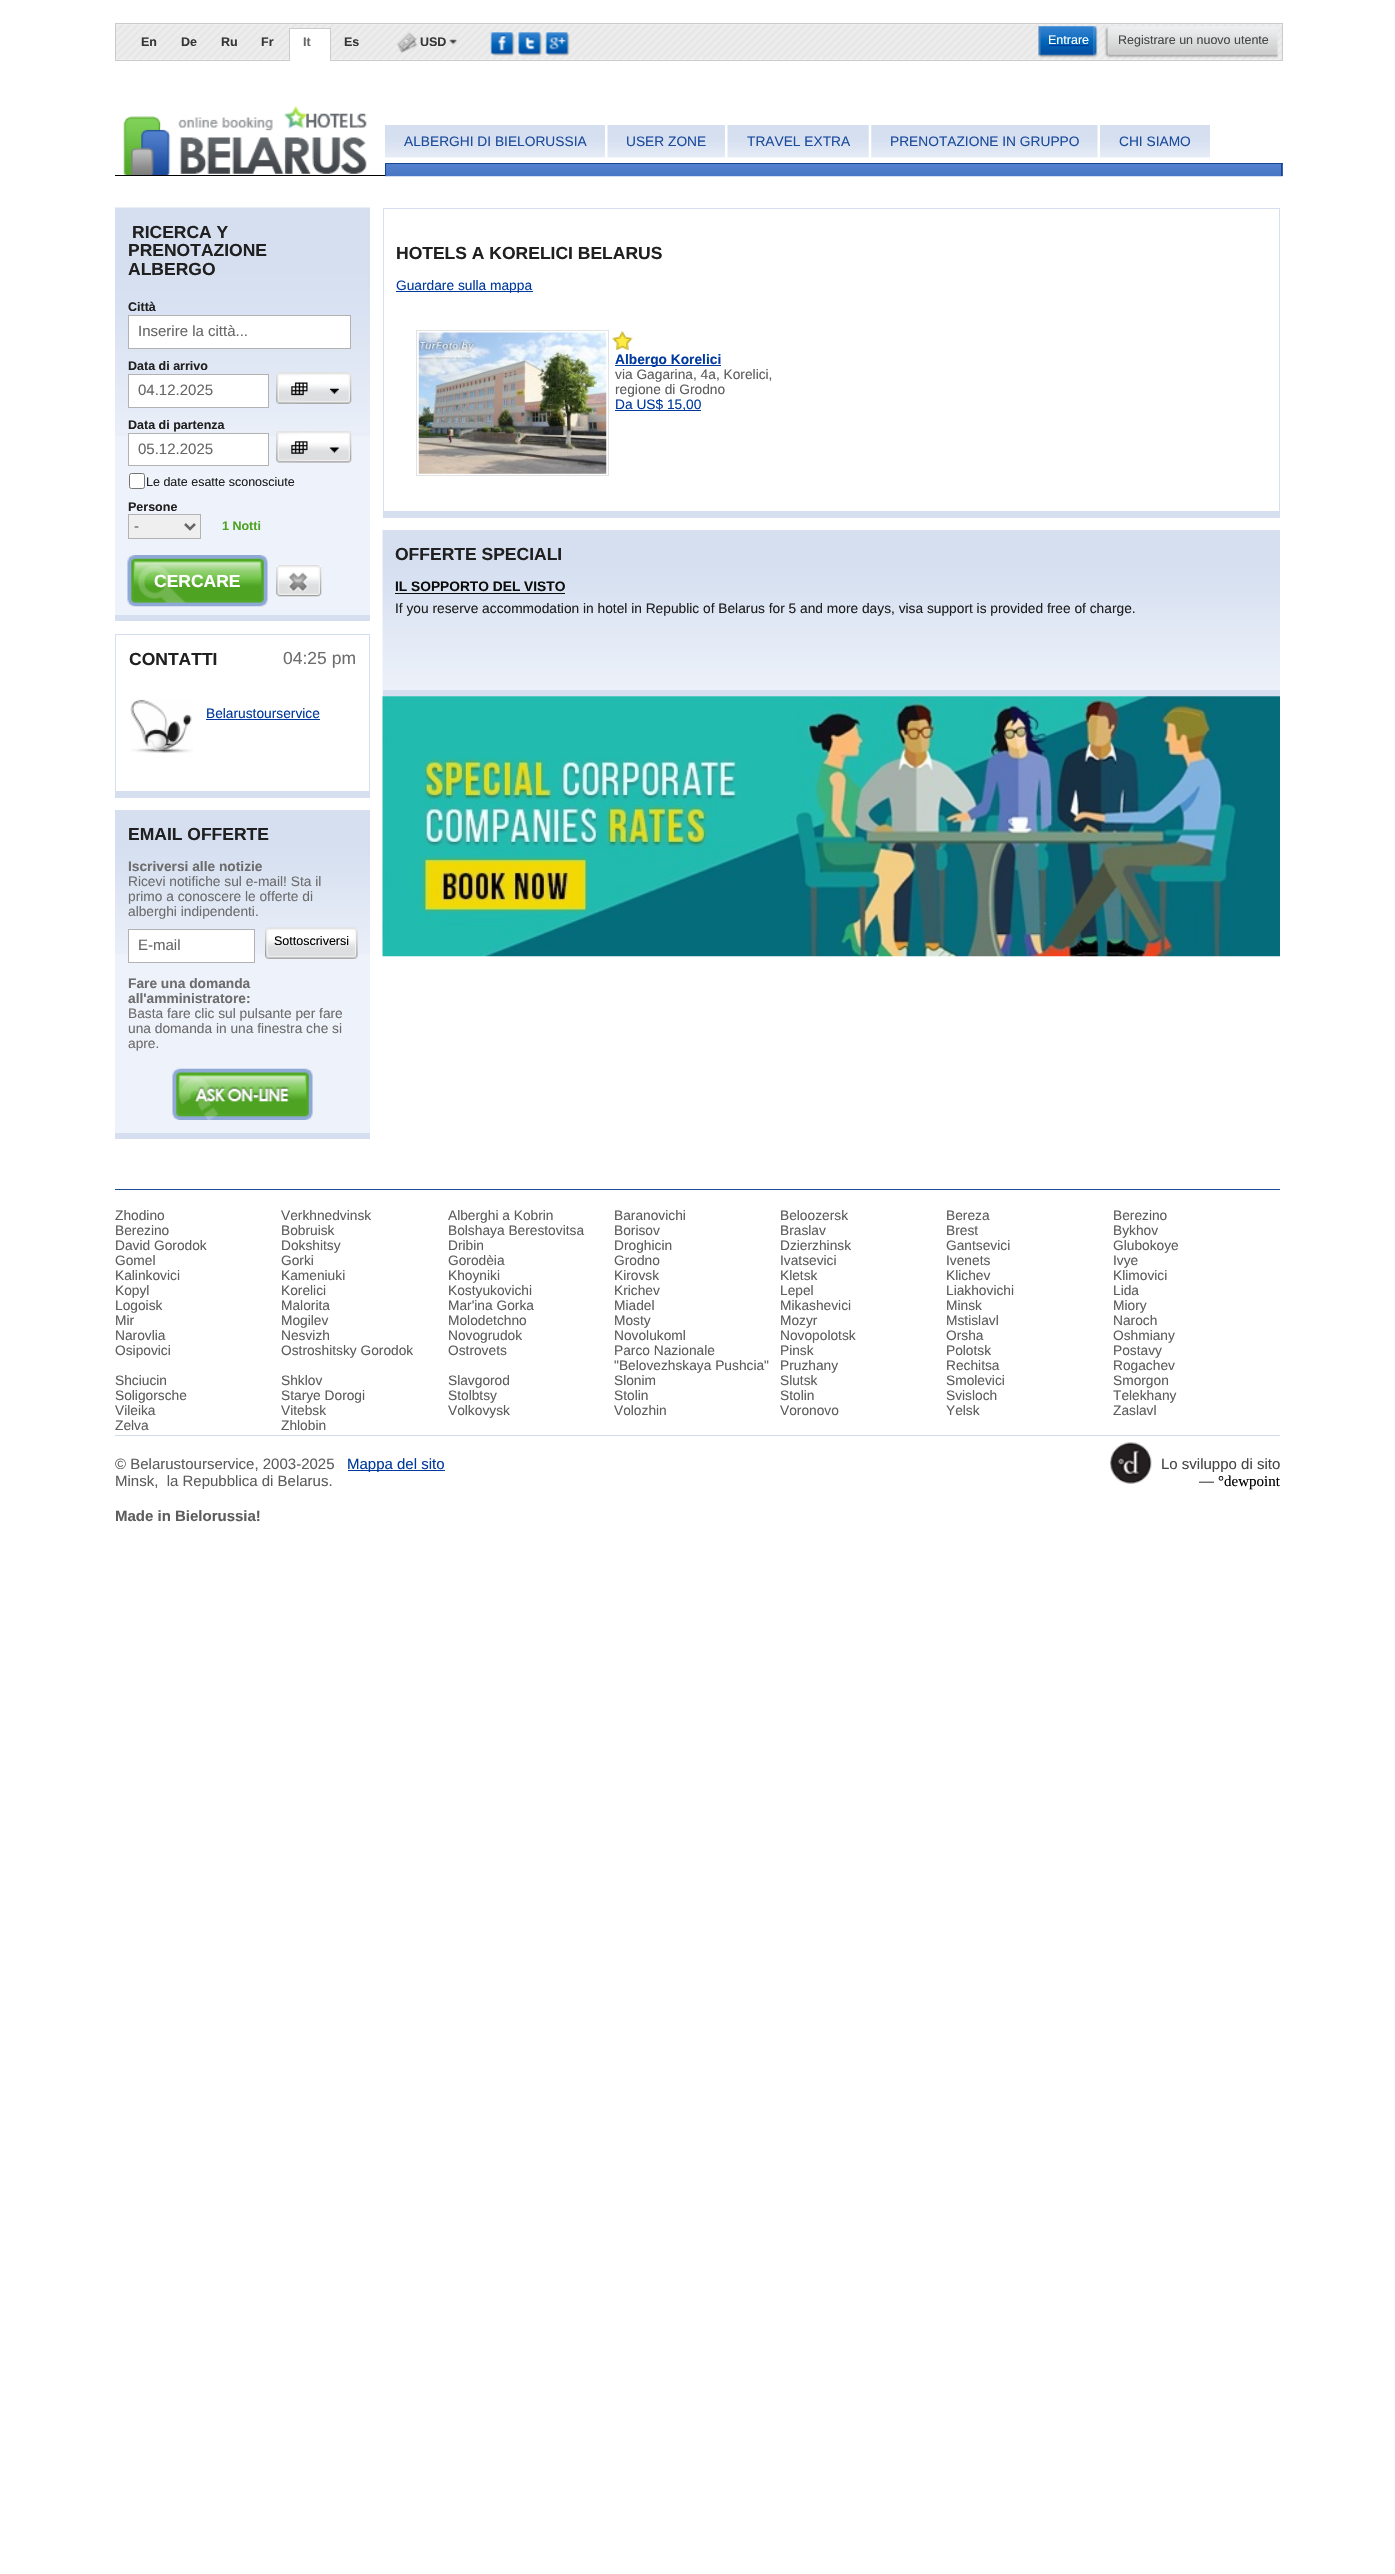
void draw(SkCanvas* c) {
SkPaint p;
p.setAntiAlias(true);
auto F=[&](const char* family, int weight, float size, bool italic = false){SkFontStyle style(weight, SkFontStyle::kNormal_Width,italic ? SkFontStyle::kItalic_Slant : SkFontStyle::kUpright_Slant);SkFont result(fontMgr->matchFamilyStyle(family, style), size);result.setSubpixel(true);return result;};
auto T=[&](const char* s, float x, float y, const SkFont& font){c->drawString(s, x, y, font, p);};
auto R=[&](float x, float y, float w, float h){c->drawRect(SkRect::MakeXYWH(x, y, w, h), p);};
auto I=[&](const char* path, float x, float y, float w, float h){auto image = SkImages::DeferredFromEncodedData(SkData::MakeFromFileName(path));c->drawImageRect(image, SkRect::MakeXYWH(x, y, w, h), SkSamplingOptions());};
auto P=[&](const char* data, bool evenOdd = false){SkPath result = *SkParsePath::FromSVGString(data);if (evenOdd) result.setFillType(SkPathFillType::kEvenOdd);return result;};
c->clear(0xffffffff);
I("1.png",116,24,1166,36);
p.setStroke(true);
p.setStrokeWidth(1);
p.setColor(0xffcbcbcb);
c->drawRect(SkRect::MakeXYWH(115.5,23.5,1167,37),p);
auto f1 = F("Liberation Sans",700,12.5);
p.setStroke(false);
p.setColor(0xff363636);
T("En",141,46,f1);
T("De",181,46,f1);
T("Ru",221,46,f1);
T("Fr",261,46,f1);
p.setColor(0xffffffff);
R(290,29,40,32);
p.setColor(0xffcbcbcb);
R(289,28,42,1);
R(330,28,1,33);
R(289,28,1,33);
p.setColor(0xff676767);
T("It",303,46,f1);
p.setColor(0xff363636);
T("Es",344,46,f1);
I("2.png",397,32,20,21);
T("USD",420,46,f1);
I("3.png",449,39,8,6);
I("4.png",490,32,25,24);
I("5.png",518,32,25,25);
I("6.png",545,32,25,24);
I("7.png",1039,26,55,32);
I("8.png",1038,26,3,31);
auto f2 = F("Liberation Sans",400,12.5);
p.setColor(0xffffffff);
T("Entrare",1048,44,f2);
p.setColor(0xff013a9e);
R(1049,45,40,1);
I("9.png",1093,26,5,32);
I("10.png",1108,26,170,32);
I("11.png",1104,26,6,32);
p.setColor(0xff464646);
T("Registrare un nuovo utente",1118,44,f2);
p.setColor(0xff000000);
R(115,175,270,1);
I("12.png",123,106,244,69);
I("13.png",385,125,220,33);
auto f3 = F("Liberation Sans",400,13.75);
p.setColor(0xff1d4c9d);
T("ALBERGHI DI BIELORUSSIA",404,146,f3);
I("14.png",607,125,118,33);
T("USER ZONE",626,146,f3);
I("15.png",727,125,142,33);
T("TRAVEL EXTRA",747,146,f3);
I("16.png",871,125,227,33);
T("PRENOTAZIONE IN GRUPPO",890,146,f3);
I("17.png",1100,125,110,33);
T("CHI SIAMO",1119,146,f3);
R(1282,164,1,12);
I("18.png",385,164,898,13);
p.setColor(0xff184591);
R(385,163,898,1);
R(1281,163,1,13);
R(385,163,1,13);
p.setColor(0xffeef2fa);
R(115,436,255,179);
I("19.png",115,207,255,229);
p.setColor(0xffd5dff0);
R(115,615,255,6);
auto f4 = F("Liberation Sans",700,17.5);
p.setColor(0xff202020);
T("RICERCA Y",132,238,f4);
T("PRENOTAZIONE",128,256,f4);
T("ALBERGO",128,275,f4);
T("Сittà",128,311,f1);
p.setColor(0xffffffff);
c->drawRect(SkRect::MakeXYWH(128.5,315.5,222,33),p);
p.setStroke(true);
p.setColor(0xffb2b2b2);
c->drawRect(SkRect::MakeXYWH(128.5,315.5,222,33),p);
auto f5 = F("Liberation Sans",400,15);
p.setStroke(false);
p.setColor(0xff676767);
T("Inserire la città...",138,336,f5);
p.setColor(0xff202020);
T("Data di arrivo",128,370,f1);
p.setColor(0xffffffff);
c->drawRect(SkRect::MakeXYWH(128.5,374.5,140,33),p);
p.setStroke(true);
p.setColor(0xffb2b2b2);
c->drawRect(SkRect::MakeXYWH(128.5,374.5,140,33),p);
p.setStroke(false);
p.setColor(0xff676767);
T("04.12.2025",138,395,f5);
I("20.png",276,372,76,32);
p.setColor(0xff202020);
T("Data di partenza",128,429,f1);
p.setColor(0xffffffff);
c->drawRect(SkRect::MakeXYWH(128.5,433.5,140,32),p);
p.setStroke(true);
p.setColor(0xffb2b2b2);
c->drawRect(SkRect::MakeXYWH(128.5,433.5,140,32),p);
p.setStroke(false);
p.setColor(0xff676767);
T("05.12.2025",138,454,f5);
I("21.png",276,431,76,32);
p.setColor(0xffffffff);
c->drawRoundRect(SkRect::MakeXYWH(129.5,473.5,15,15),2,2,p);
p.setStroke(true);
p.setColor(0xff767676);
c->drawRoundRect(SkRect::MakeXYWH(129.5,473.5,15,15),2,2,p);
p.setStroke(false);
p.setColor(0xff202020);
T("Le date esatte sconosciute",146,486,f2);
T("Persone",128,511,f1);
p.setColor(0xffefefef);
c->drawRect(SkRect::MakeXYWH(128.5,514.5,72,24),p);
p.setStroke(true);
p.setColor(0xffb2b2b2);
c->drawRect(SkRect::MakeXYWH(128.5,514.5,72,24),p);
p.setStrokeWidth(2.5);
p.setColor(0xff676767);
c->drawPath(P("M185 524l5 5l5-5"),p);
p.setStroke(false);
T("-",134,531,f5);
p.setColor(0xff4ea322);
T("1 Notti",222,530,f1);
I("22.png",127,555,141,52);
p.setColor(0xffffffff);
T("CERCARE",154,587,f4);
I("23.png",276,565,46,32);
p.setColor(0xffd5dff0);
R(115,634,255,1);
R(369,634,1,164);
R(115,791,255,7);
R(115,634,1,164);
p.setColor(0xff202020);
T("CONTATTI",129,665,f4);
auto f6 = F("Liberation Sans",400,17.5);
p.setColor(0xff6d6d6d);
T("04:25 pm",283,664,f6);
I("24.png",130,699,63,54);
p.setColor(0xff013a9e);
T("Belarustourservice",206,718,f3);
R(206,719,114,1);
p.setColor(0xffeef2fa);
R(115,954,255,179);
I("25.png",115,810,255,144);
p.setColor(0xffd5dff0);
R(115,1133,255,6);
p.setColor(0xff202020);
T("EMAIL OFFERTE",128,840,f4);
auto f7 = F("Liberation Sans",700,13.75);
p.setColor(0xff6d6d6d);
T("Iscriversi alle notizie",128,871,f7);
T("Ricevi notifiche sul e-mail! Sta il",128,886,f3);
T("primo a conoscere le offerte di",128,901,f3);
T("alberghi indipendenti.",128,916,f3);
p.setColor(0xffffffff);
c->drawRect(SkRect::MakeXYWH(128.5,929.5,126,33),p);
p.setStroke(true);
p.setStrokeWidth(1);
p.setColor(0xffb2b2b2);
c->drawRect(SkRect::MakeXYWH(128.5,929.5,126,33),p);
p.setStroke(false);
p.setColor(0xff676767);
T("E-mail",138,950,f5);
I("26.png",268,927,86,32);
I("27.png",265,927,4,32);
p.setColor(0xff000000);
T("Sottoscriversi",274,945,f2);
I("28.png",353,927,5,32);
p.setColor(0xff6d6d6d);
T("Fare una domanda",128,988,f7);
T("all'amministratore:",128,1003,f7);
T("Basta fare clic sul pulsante per fare",128,1018,f3);
T("una domanda in una finestra che si",128,1033,f3);
T("apre.",128,1048,f3);
I("29.png",172,1068,141,52);
p.setColor(0xffd5dff0);
R(383,208,897,1);
R(1279,208,1,310);
R(383,511,897,7);
R(383,208,1,310);
p.setColor(0xff202020);
T("HOTELS A KORELICI BELARUS",396,259,f4);
p.setColor(0xff013a9e);
R(396,291,137,1);
T("Guardare sulla mappa",396,290,f3);
p.setStroke(true);
p.setColor(0xffe2e2e2);
c->drawRect(SkRect::MakeXYWH(416.5,330.5,192,145),p);
I("30.png",418,332,189,142);
I("31.png",612,331,21,19);
p.setStroke(false);
p.setColor(0xff013a9e);
R(615,365,106,1);
T("Albergo Korelici",615,364,f7);
p.setColor(0xff5d5d5d);
T("via Gagarina, 4a, Korelici,",615,379,f3);
T("regione di Grodno",615,394,f3);
p.setColor(0xff013a9e);
R(615,410,86,1);
T("Da US$ 15,00",615,409,f3);
I("32.png",382,530,898,167);
p.setColor(0xffd5dff0);
R(383,690,897,6);
p.setColor(0xff202020);
T("OFFERTE SPECIALI",395,560,f4);
p.setColor(0xff0c0c0c);
T("IL SOPPORTO DEL VISTO",395,591,f7);
R(395,593,170,1);
p.setColor(0xff202020);
T("If you reserve accommodation in hotel in Republic of Belarus for 5 and more days, visa support is provided free of charge.",395,613,f3);
I("33.png",382,696,898,261);
p.setColor(0xff1d4c9d);
R(115,1189,1165,1);
p.setColor(0xffd2dbeb);
R(115,1435,1165,1);
p.setColor(0xff5d5d5d);
T("Zhodino",115,1220,f3);
T("Verkhnedvinsk",281,1220,f3);
T("Alberghi a Kobrin",448,1220,f3);
T("Baranovichi",614,1220,f3);
T("Beloozersk",780,1220,f3);
T("Bereza",946,1220,f3);
T("Berezino",1113,1220,f3);
T("Berezino",115,1235,f3);
T("Bobruisk",281,1235,f3);
T("Bolshaya Berestovitsa",448,1235,f3);
T("Borisov",614,1235,f3);
T("Braslav",780,1235,f3);
T("Brest",946,1235,f3);
T("Bykhov",1113,1235,f3);
T("David Gorodok",115,1250,f3);
T("Dokshitsy",281,1250,f3);
T("Dribin",448,1250,f3);
T("Droghicin",614,1250,f3);
T("Dzierzhinsk",780,1250,f3);
T("Gantsevici",946,1250,f3);
T("Glubokoye",1113,1250,f3);
T("Gomel",115,1265,f3);
T("Gorki",281,1265,f3);
T("Gorodèia",448,1265,f3);
T("Grodno",614,1265,f3);
T("Ivatsevici",780,1265,f3);
T("Ivenets",946,1265,f3);
T("Ivye",1113,1265,f3);
T("Kalinkovici",115,1280,f3);
T("Kameniuki",281,1280,f3);
T("Khoyniki",448,1280,f3);
T("Kirovsk",614,1280,f3);
T("Kletsk",780,1280,f3);
T("Klichev",946,1280,f3);
T("Klimovici",1113,1280,f3);
T("Kopyl",115,1295,f3);
T("Korelici",281,1295,f3);
T("Kostyukovichi",448,1295,f3);
T("Krichev",614,1295,f3);
T("Lepel",780,1295,f3);
T("Liakhovichi",946,1295,f3);
T("Lida",1113,1295,f3);
T("Logoisk",115,1310,f3);
T("Malorita",281,1310,f3);
T("Mar'ina Gorka",448,1310,f3);
T("Miadel",614,1310,f3);
T("Mikashevici",780,1310,f3);
T("Minsk",946,1310,f3);
T("Miory",1113,1310,f3);
T("Mir",115,1325,f3);
T("Mogilev",281,1325,f3);
T("Molodetchno",448,1325,f3);
T("Mosty",614,1325,f3);
T("Mozyr",780,1325,f3);
T("Mstislavl",946,1325,f3);
T("Naroch",1113,1325,f3);
T("Narovlia",115,1340,f3);
T("Nesvizh",281,1340,f3);
T("Novogrudok",448,1340,f3);
T("Novolukoml",614,1340,f3);
T("Novopolotsk",780,1340,f3);
T("Orsha",946,1340,f3);
T("Oshmiany",1113,1340,f3);
T("Osipovici",115,1355,f3);
T("Ostroshitsky Gorodok",281,1355,f3);
T("Ostrovets",448,1355,f3);
T("Parco Nazionale",614,1355,f3);
T("\"Belovezhskaya Pushcia\"",614,1370,f3);
T("Pinsk",780,1355,f3);
T("Polotsk",946,1355,f3);
T("Postavy",1113,1355,f3);
T("Pruzhany",780,1370,f3);
T("Rechitsa",946,1370,f3);
T("Rogachev",1113,1370,f3);
T("Shciucin",115,1385,f3);
T("Shklov",281,1385,f3);
T("Slavgorod",448,1385,f3);
T("Slonim",614,1385,f3);
T("Slutsk",780,1385,f3);
T("Smolevici",946,1385,f3);
T("Smorgon",1113,1385,f3);
T("Soligorsche",115,1400,f3);
T("Starye Dorogi",281,1400,f3);
T("Stolbtsy",448,1400,f3);
T("Stolin",614,1400,f3);
T("Stolin",780,1400,f3);
T("Svisloch",946,1400,f3);
T("Telekhany",1113,1400,f3);
T("Vileika",115,1415,f3);
T("Vitebsk",281,1415,f3);
T("Volkovysk",448,1415,f3);
T("Volozhin",614,1415,f3);
T("Voronovo",780,1415,f3);
T("Yelsk",946,1415,f3);
T("Zaslavl",1113,1415,f3);
T("Zelva",115,1430,f3);
T("Zhlobin",281,1430,f3);
T("© Belarustourservice, 2003-2025",115,1469,f5);
T("Minsk,  la Repubblica di Belarus.",115,1486,f5);
auto f8 = F("Liberation Sans",700,15);
T("Made in Bielorussia!",115,1521,f8);
p.setColor(0xff013a9e);
R(348,1470,97,1);
T("Mappa del sito",347,1469,f5);
I("34.png",1110,1442,42,42);
p.setColor(0xff464646);
T("Lo sviluppo di sito",1161,1469,f5);
T("—",1199,1486,f5);
auto f9 = F("Liberation Serif",400,15);
p.setColor(0xff000000);
T("°dewpoint",1218,1486,f9);
}
